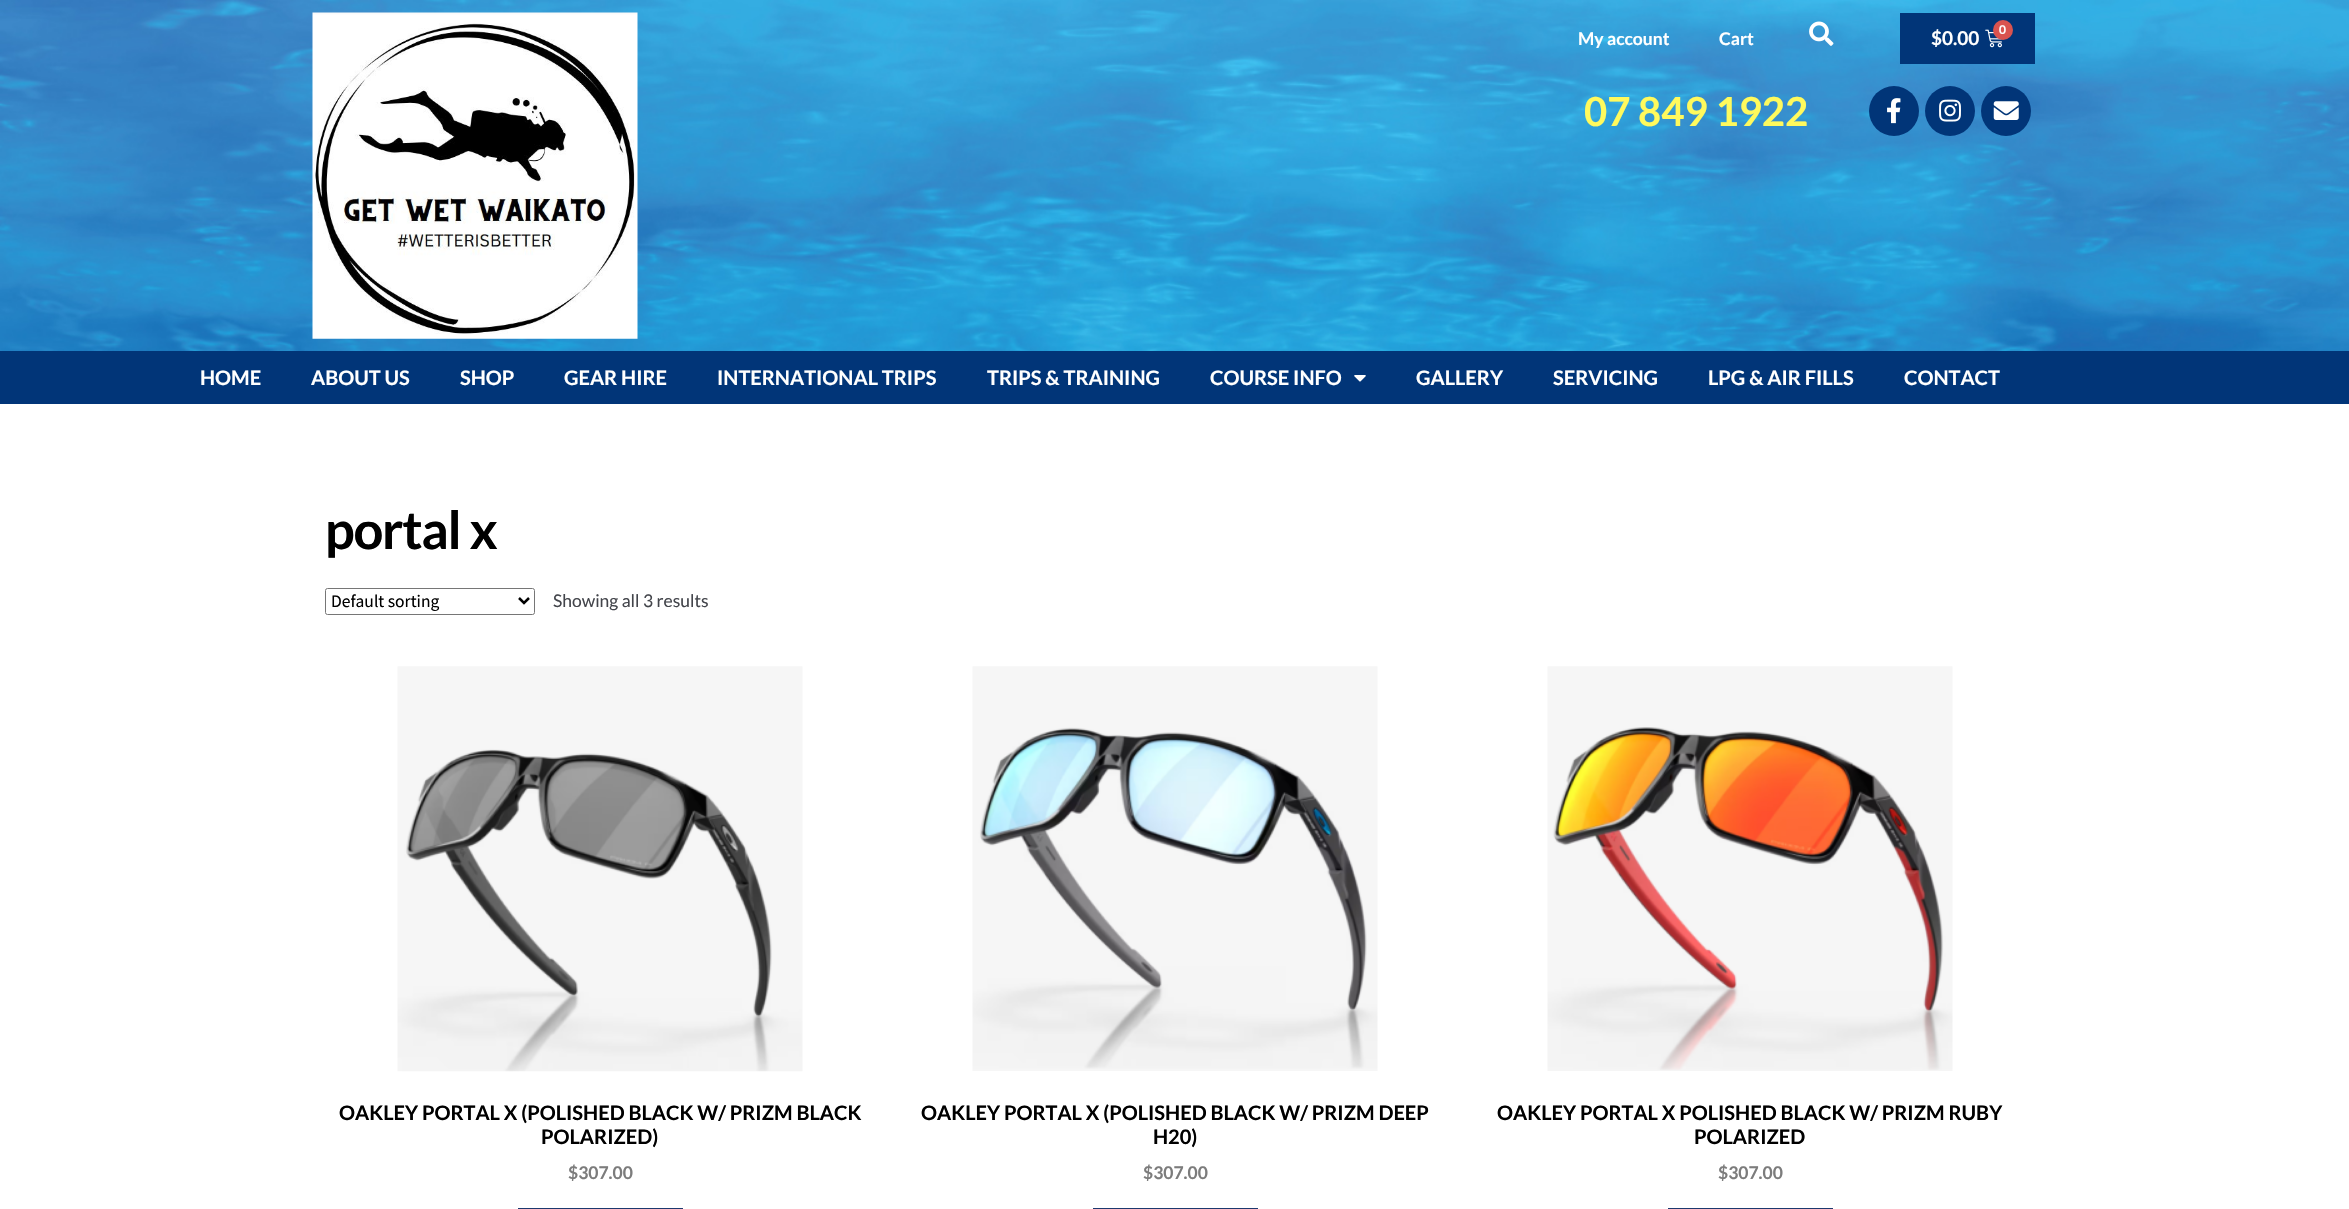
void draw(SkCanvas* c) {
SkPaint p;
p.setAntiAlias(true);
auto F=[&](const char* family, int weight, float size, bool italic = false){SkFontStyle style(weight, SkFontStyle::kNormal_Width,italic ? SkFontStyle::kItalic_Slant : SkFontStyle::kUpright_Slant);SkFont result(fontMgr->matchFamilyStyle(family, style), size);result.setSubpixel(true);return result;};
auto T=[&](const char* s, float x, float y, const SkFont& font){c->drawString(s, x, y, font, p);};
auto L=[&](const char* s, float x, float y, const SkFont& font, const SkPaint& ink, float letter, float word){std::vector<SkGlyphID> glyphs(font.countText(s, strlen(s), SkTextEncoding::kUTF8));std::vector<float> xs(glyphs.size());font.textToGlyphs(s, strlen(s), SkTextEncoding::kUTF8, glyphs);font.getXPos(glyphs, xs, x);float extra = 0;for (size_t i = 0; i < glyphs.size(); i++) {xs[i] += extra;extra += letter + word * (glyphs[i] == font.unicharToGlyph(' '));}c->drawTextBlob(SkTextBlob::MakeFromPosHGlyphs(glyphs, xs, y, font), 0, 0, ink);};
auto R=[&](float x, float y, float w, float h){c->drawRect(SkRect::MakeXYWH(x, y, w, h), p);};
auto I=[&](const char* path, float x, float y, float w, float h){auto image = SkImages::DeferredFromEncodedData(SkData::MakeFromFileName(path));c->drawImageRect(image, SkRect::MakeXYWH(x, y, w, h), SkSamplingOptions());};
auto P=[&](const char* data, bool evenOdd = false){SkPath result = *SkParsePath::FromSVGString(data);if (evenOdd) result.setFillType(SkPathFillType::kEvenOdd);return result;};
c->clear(0xffffffff);
I("1.png",0,0,2349,351);
I("2.png",312,12,326,327);
auto f1 = F("Lato",700,17.5);
p.setColor(0xffffffff);
T("My account",1578,45,f1);
T("Cart",1719,45,f1);
I("3.png",1809,21,25,25);
p.setColor(0xff013578);
R(1900,13,135,51);
auto f2 = F("Lato",700,19);
p.setColor(0xffffffff);
T("$0.00",1931,45,f2);
I("4.png",1985,29,17,19);
p.setColor(0xffd9534f);
c->drawCircle(2003,30,10,p);
auto f3 = F("Lato",700,12);
p.setColor(0xffffffff);
T("0",1999,34,f3);
auto f4 = F("Lato",700,40);
p.setColor(0xfffffa5d);
T("07 849 1922",1584,126,f4);
p.setColor(0xff013578);
c->drawCircle(1894,111,25,p);
I("5.png",1887,98,14,26);
c->drawCircle(1950,111,25,p);
I("6.png",1939,99,22,23);
c->drawCircle(2006,111,25,p);
I("7.png",1993,101,26,19);
R(0,351,2349,53);
auto f5 = F("Lato",700,20);
p.setColor(0xffffffff);
T("HOME",200,385,f5);
T("ABOUT US",311,385,f5);
T("SHOP",460,385,f5);
T("GEAR HIRE",564,385,f5);
T("INTERNATIONAL TRIPS",717,385,f5);
T("TRIPS & TRAINING",987,385,f5);
T("COURSE INFO",1210,385,f5);
I("8.png",1354,375,12,7);
T("GALLERY",1416,385,f5);
T("SERVICING",1553,385,f5);
T("LPG & AIR FILLS",1708,385,f5);
T("CONTACT",1904,385,f5);
auto f6 = F("Lato",700,52.5);
p.setColor(0xff000000);
L("portal x",325,549,f6,p,-1.25,0);
p.setStroke(true);
p.setStrokeWidth(1);
p.setColor(0xff767676);
c->drawRoundRect(SkRect::MakeXYWH(325.5,588.5,209,26),2,2,p);
p.setStrokeWidth(2.5);
p.setColor(0xff000000);
c->drawPath(P("M519 598l5 5l5-5"),p);
auto f7 = F("Source Sans Pro",400,17.5);
p.setStroke(false);
T("Default sorting",331,607,f7);
auto f8 = F("Lato",400,17.5);
p.setColor(0xff43454b);
T("Showing all 3 results",553,607,f8);
I("9.png",397,666,406,406);
p.setColor(0xff000000);
T("OAKLEY PORTAL X (POLISHED BLACK W/ PRIZM BLACK",339,1120,f5);
T("POLARIZED)",541,1144,f5);
p.setColor(0xff7c7c7c);
T("$307.00",568,1179,f1);
p.setColor(0xff1d386e);
R(518,1208,165,1);
I("10.png",972,666,406,405);
p.setColor(0xff000000);
T("OAKLEY PORTAL X (POLISHED BLACK W/ PRIZM DEEP",921,1120,f5);
T("H20)",1153,1144,f5);
p.setColor(0xff7c7c7c);
T("$307.00",1143,1179,f1);
p.setColor(0xff1d386e);
R(1093,1208,165,1);
I("11.png",1547,666,406,405);
p.setColor(0xff000000);
T("OAKLEY PORTAL X POLISHED BLACK W/ PRIZM RUBY",1497,1120,f5);
T("POLARIZED",1694,1144,f5);
p.setColor(0xff7c7c7c);
T("$307.00",1718,1179,f1);
p.setColor(0xff1d386e);
R(1668,1208,165,1);
}
